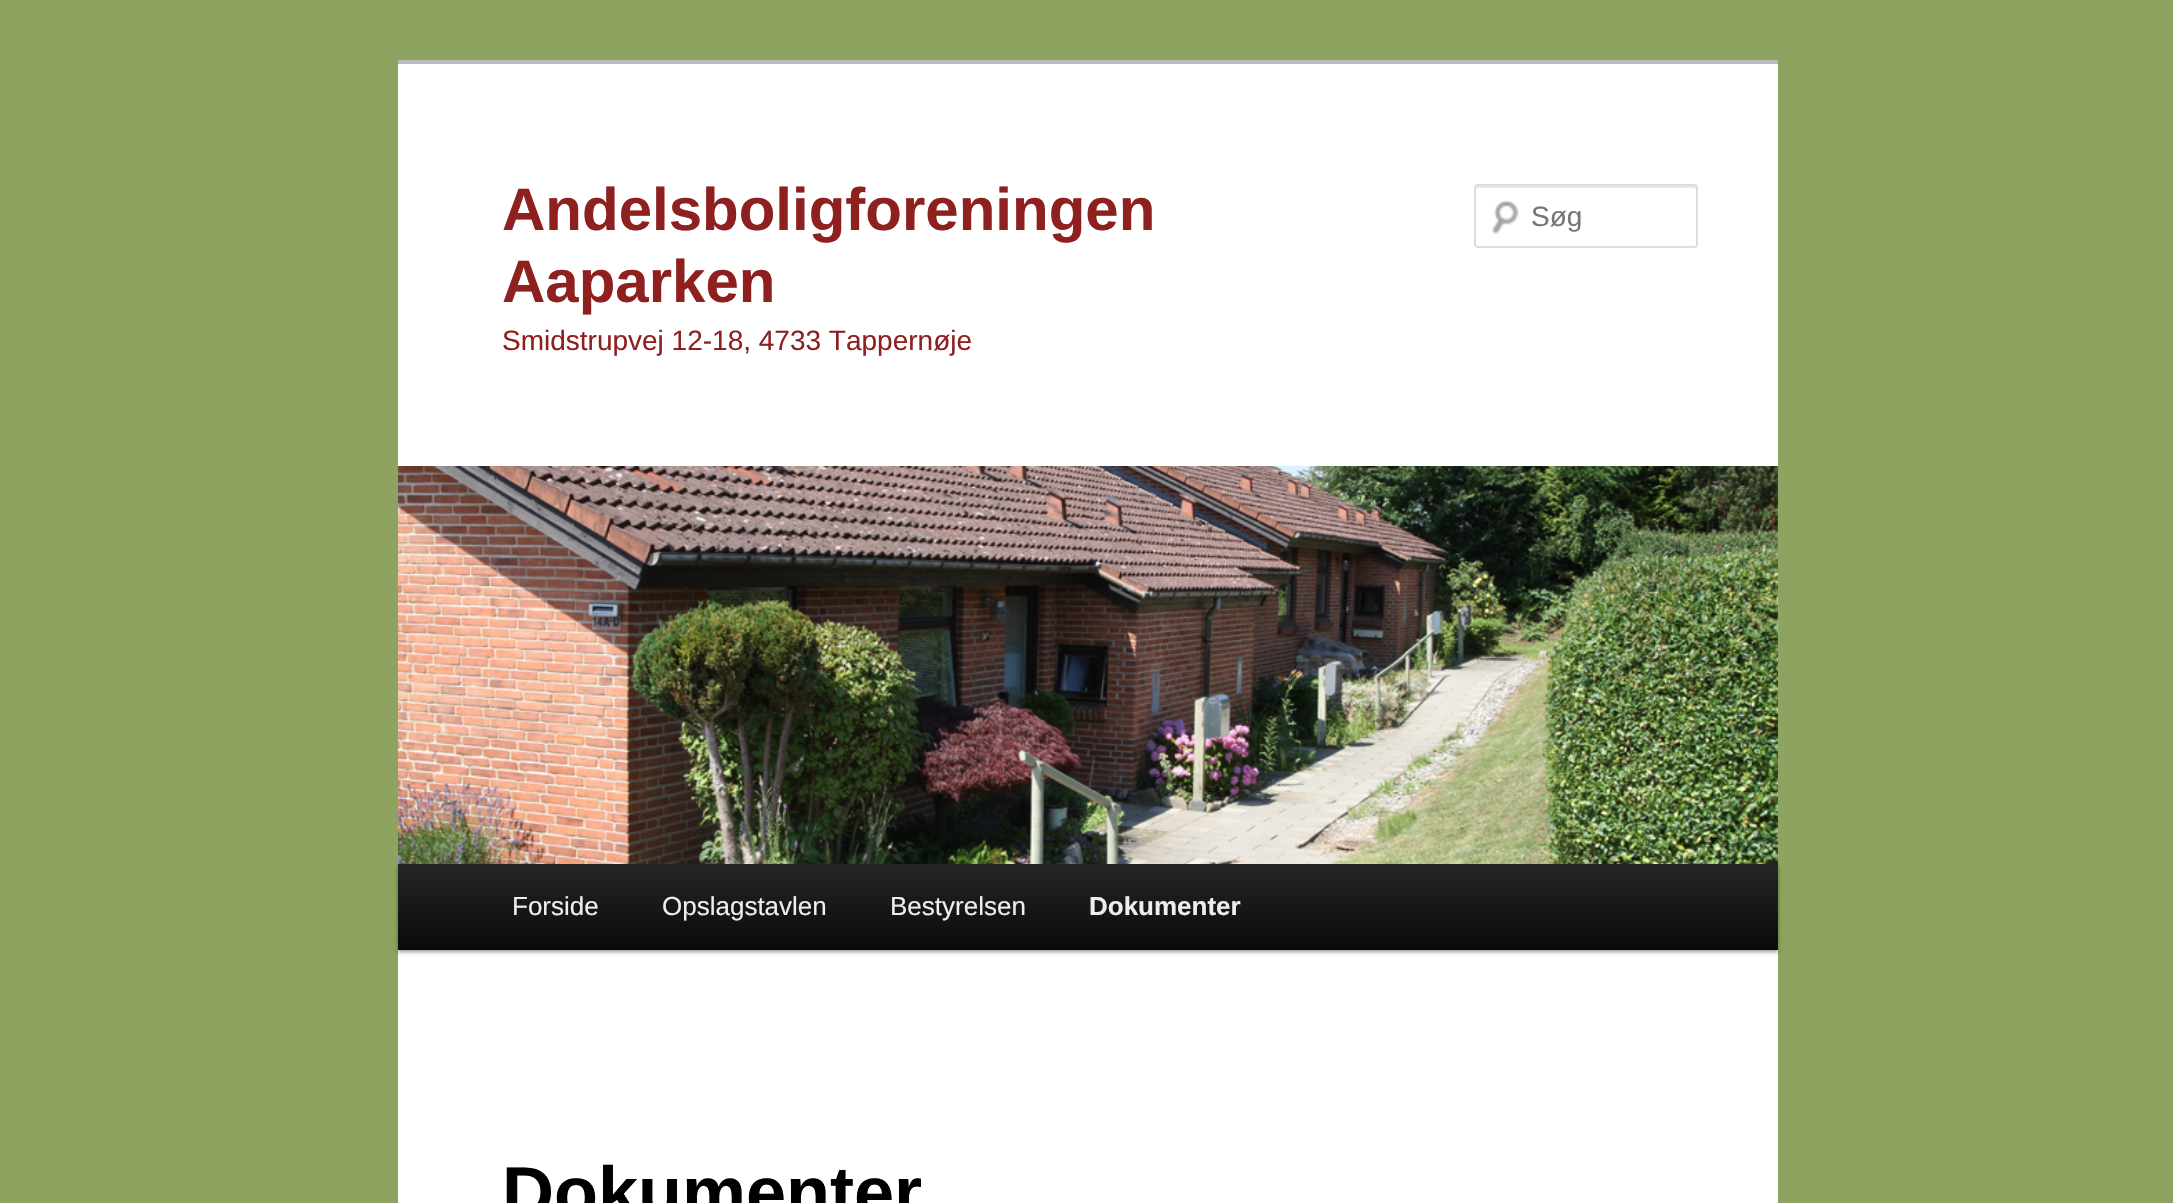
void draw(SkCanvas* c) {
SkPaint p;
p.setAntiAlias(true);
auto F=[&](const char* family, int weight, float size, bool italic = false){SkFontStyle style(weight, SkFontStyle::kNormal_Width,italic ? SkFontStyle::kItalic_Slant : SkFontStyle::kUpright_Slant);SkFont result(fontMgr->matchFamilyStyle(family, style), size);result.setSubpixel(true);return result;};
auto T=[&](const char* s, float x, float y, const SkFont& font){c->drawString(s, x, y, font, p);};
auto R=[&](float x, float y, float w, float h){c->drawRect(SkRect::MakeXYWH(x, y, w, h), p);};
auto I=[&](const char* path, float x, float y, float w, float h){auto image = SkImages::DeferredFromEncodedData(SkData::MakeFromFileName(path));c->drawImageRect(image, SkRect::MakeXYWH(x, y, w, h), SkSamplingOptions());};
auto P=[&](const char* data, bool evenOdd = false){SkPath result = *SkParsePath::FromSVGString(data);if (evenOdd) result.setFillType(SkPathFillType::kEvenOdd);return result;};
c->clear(0xff8fa360);
p.setColor(0xffffffff);
R(398,64,1380,1139);
p.setColor(0xffbbbbbb);
R(398,60,1380,4);
auto f1 = F("Liberation Sans",700,60);
p.setColor(0xff8e2020);
T("Andelsboligforeningen",502,230,f1);
T("Aaparken",502,302,f1);
auto f2 = F("Liberation Sans",400,28);
T("Smidstrupvej 12-18, 4733 Tappernøje",502,350,f2);
I("1.png",1491,200,28,35);
p.setColor(0xffe6e6e6);
c->drawPath(P("M1478 188h216c1 0 2 1 2 2v-2c0-1-1-2-2-2h-216c-1 0-2 1-2 2v2c0-1 1-2 2-2z"),p);
p.setStroke(true);
p.setStrokeWidth(2);
p.setColor(0xffdddddd);
c->drawRoundRect(SkRect::MakeXYWH(1475,185,222,62),3,3,p);
p.setStroke(false);
p.setColor(0xff757575);
T("Søg",1531,226,f2);
p.setColor(0x66000000);
p.setMaskFilter(SkMaskFilter::MakeBlur(kNormal_SkBlurStyle, 2));
c->drawRect(SkRect::MakeXYWH(398,866,1380,86),p);
p.setMaskFilter(nullptr);
I("2.png",398,466,1380,398);
{
const SkColor colors[] = {0xff252525,0xff0a0a0a};
const float stops[] = {0,1};
const SkPoint ends[] = {{1088,864}, {1088,950}};
p.setShader(SkGradientShader::MakeLinear(ends, colors, stops, 2, SkTileMode::kClamp));
p.setAlpha(255);
}
R(398,864,1380,86);
auto f3 = F("Liberation Sans",400,26);
p.setShader(nullptr);
p.setColor(0xffeeeeee);
T("Forside",512,915,f3);
T("Opslagstavlen",662,915,f3);
T("Bestyrelsen",890,915,f3);
auto f4 = F("Liberation Sans",700,26);
T("Dokumenter",1089,915,f4);
auto f5 = F("Liberation Sans",700,72);
p.setColor(0xff000000);
T("Dokumenter",502,1217,f5);
}
